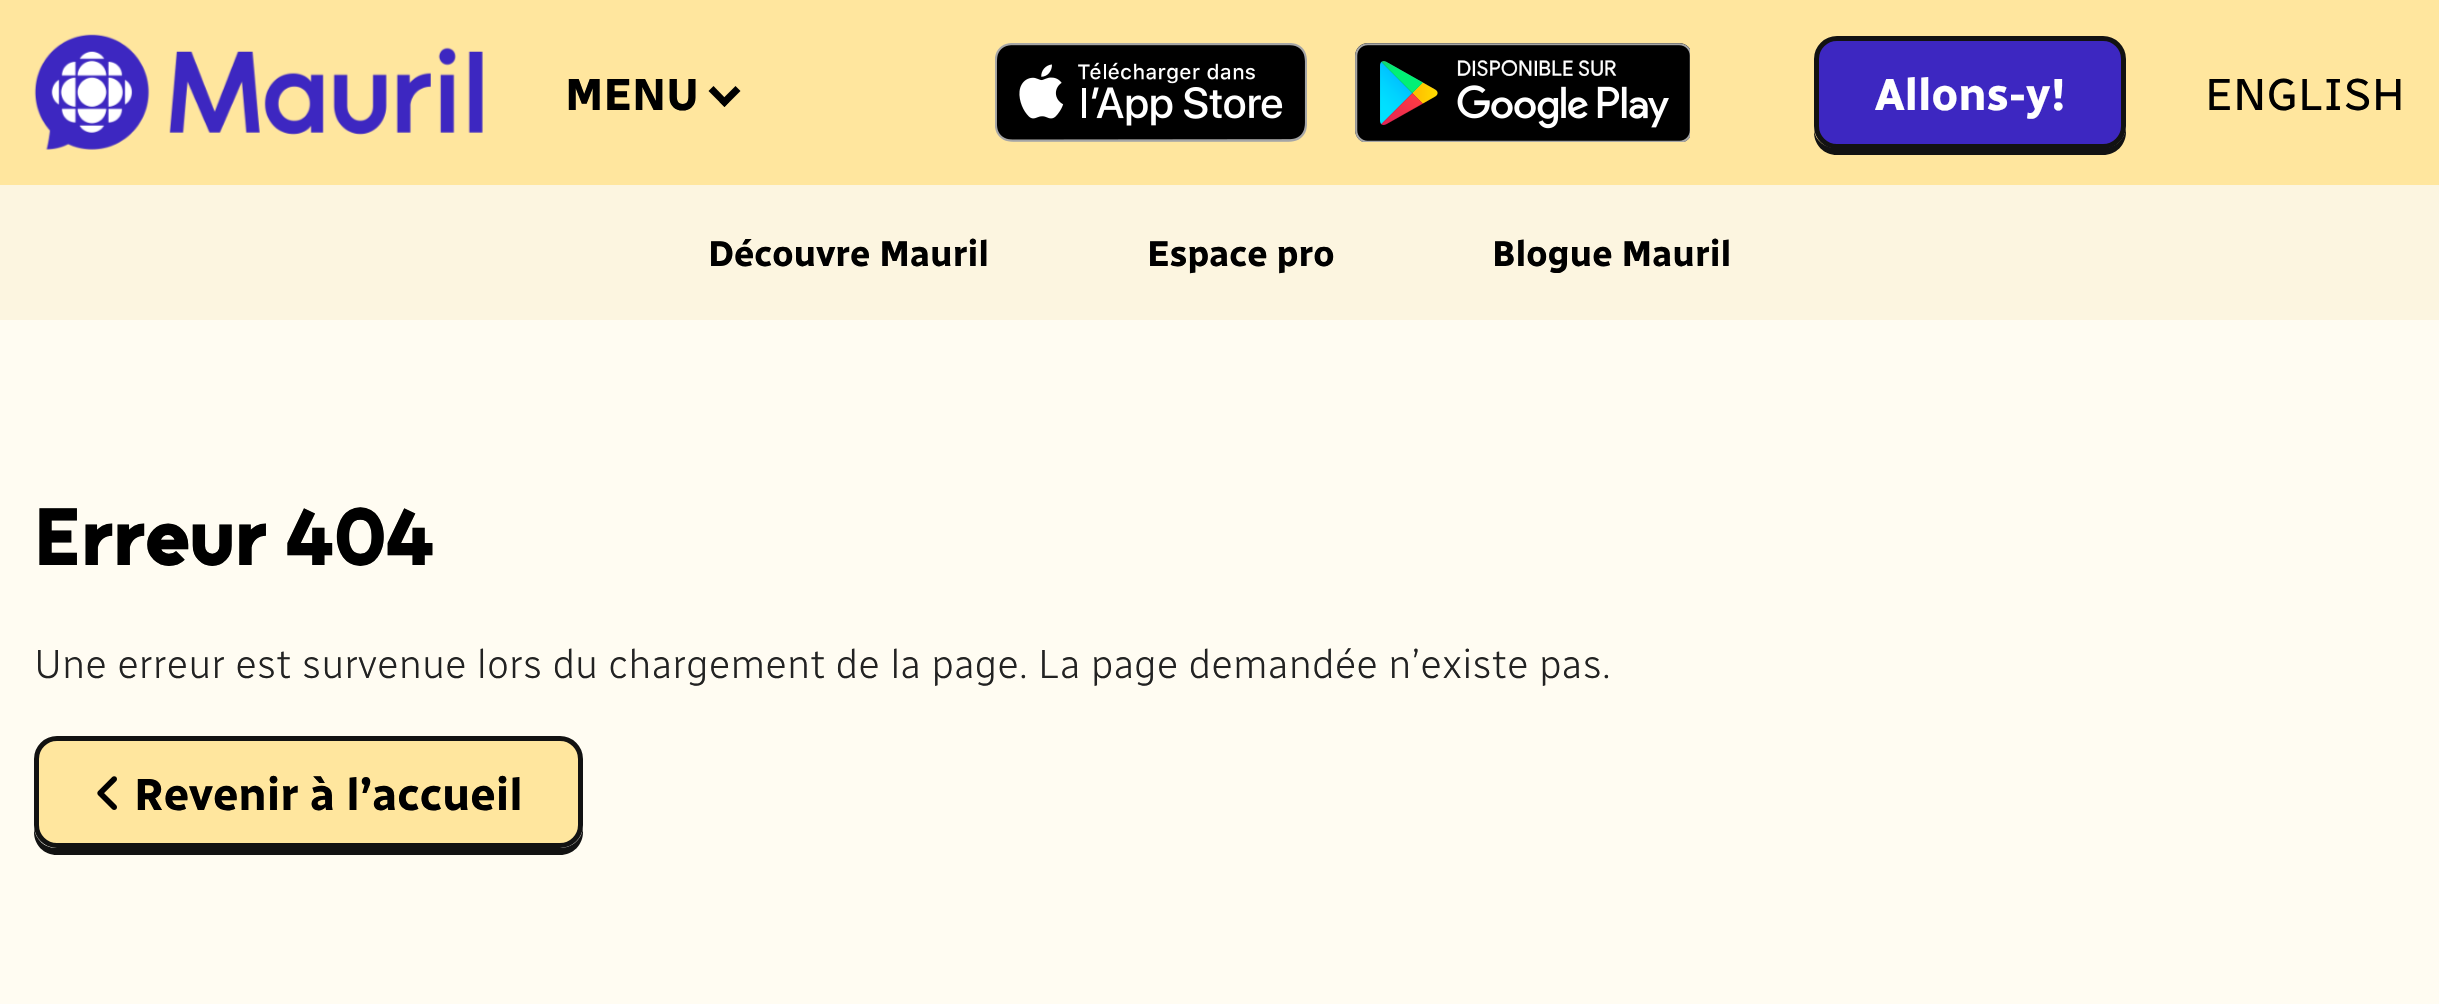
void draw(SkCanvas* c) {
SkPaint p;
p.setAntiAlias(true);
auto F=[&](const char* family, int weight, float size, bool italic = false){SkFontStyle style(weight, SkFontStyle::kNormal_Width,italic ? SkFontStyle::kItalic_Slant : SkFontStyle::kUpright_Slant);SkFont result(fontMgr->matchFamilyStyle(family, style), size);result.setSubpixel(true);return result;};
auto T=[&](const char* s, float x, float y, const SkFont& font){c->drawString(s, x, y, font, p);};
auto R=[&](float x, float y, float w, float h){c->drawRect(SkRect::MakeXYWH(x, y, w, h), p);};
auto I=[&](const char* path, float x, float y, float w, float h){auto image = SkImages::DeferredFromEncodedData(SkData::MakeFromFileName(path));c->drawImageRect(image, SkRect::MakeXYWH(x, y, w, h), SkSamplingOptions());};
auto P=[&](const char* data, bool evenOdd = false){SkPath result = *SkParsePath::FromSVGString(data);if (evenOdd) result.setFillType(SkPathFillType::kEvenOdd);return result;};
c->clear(0xfffffcf2);
p.setColor(0xffffe69e);
R(0,0,2439,185);
I("1.png",34,34,449,116);
auto f1 = F("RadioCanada",700,45);
p.setColor(0xff000000);
T("MENU",565,110,f1);
c->drawPath(P("M740.5 91l-16 16l-5-5l16-16z"),p);
c->drawPath(P("M729 102l-4.5 5l-16-16l5-5z"),p);
I("2.png",995,43,312,99);
I("3.png",1355,43,335,99);
p.setColor(0xff121212);
c->drawPath(P("M1814 131v1c0 13 10 23 23 23h266c13 0 23-10 23-23v-3c-2 11-11 19-22 19h-268c-11 0-20-7-22-17z"),p);
p.setColor(0xff3d27c1);
c->drawRoundRect(SkRect::MakeXYWH(1816.5,38.5,307,108),20.5,20.5,p);
p.setStroke(true);
p.setStrokeWidth(5);
p.setColor(0xff121212);
c->drawRoundRect(SkRect::MakeXYWH(1816.5,38.5,307,108),20.5,20.5,p);
p.setStroke(false);
p.setColor(0xffffffff);
T("Allons-y!",1875,110,f1);
auto f2 = F("RadioCanada",400,45);
p.setColor(0xff000000);
T("ENGLISH",2205,110,f2);
p.setColor(0xfffcf5e0);
R(0,185,2439,135);
auto f3 = F("RadioCanada",700,36);
p.setColor(0xff000000);
T("Découvre Mauril",708,266,f3);
T("Espace pro",1147,266,f3);
T("Blogue Mauril",1492,266,f3);
auto f4 = F("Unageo",800,81);
T("Erreur 404",34,565,f4);
auto f5 = F("RadioCanada",300,40.5);
p.setColor(0xff222222);
T("Une erreur est survenue lors du chargement de la page. La page demandée n’existe pas.",34,678,f5);
p.setColor(0xff121212);
c->drawPath(P("M34 829v3c0 13 10 23 23 23h503c13 0 23-10 23-23v-69v63c0 12-10 22-23 22h-504c-11 0-20-8-22-19z"),p);
p.setColor(0xffffe69e);
c->drawRoundRect(SkRect::MakeXYWH(36.5,738.5,544,107),20.5,20.5,p);
p.setStroke(true);
p.setColor(0xff121212);
c->drawRoundRect(SkRect::MakeXYWH(36.5,738.5,544,107),20.5,20.5,p);
I("4.png",97,776,20,34);
p.setStroke(false);
p.setColor(0xff000000);
T("Revenir à l’accueil",134,810,f1);
}
